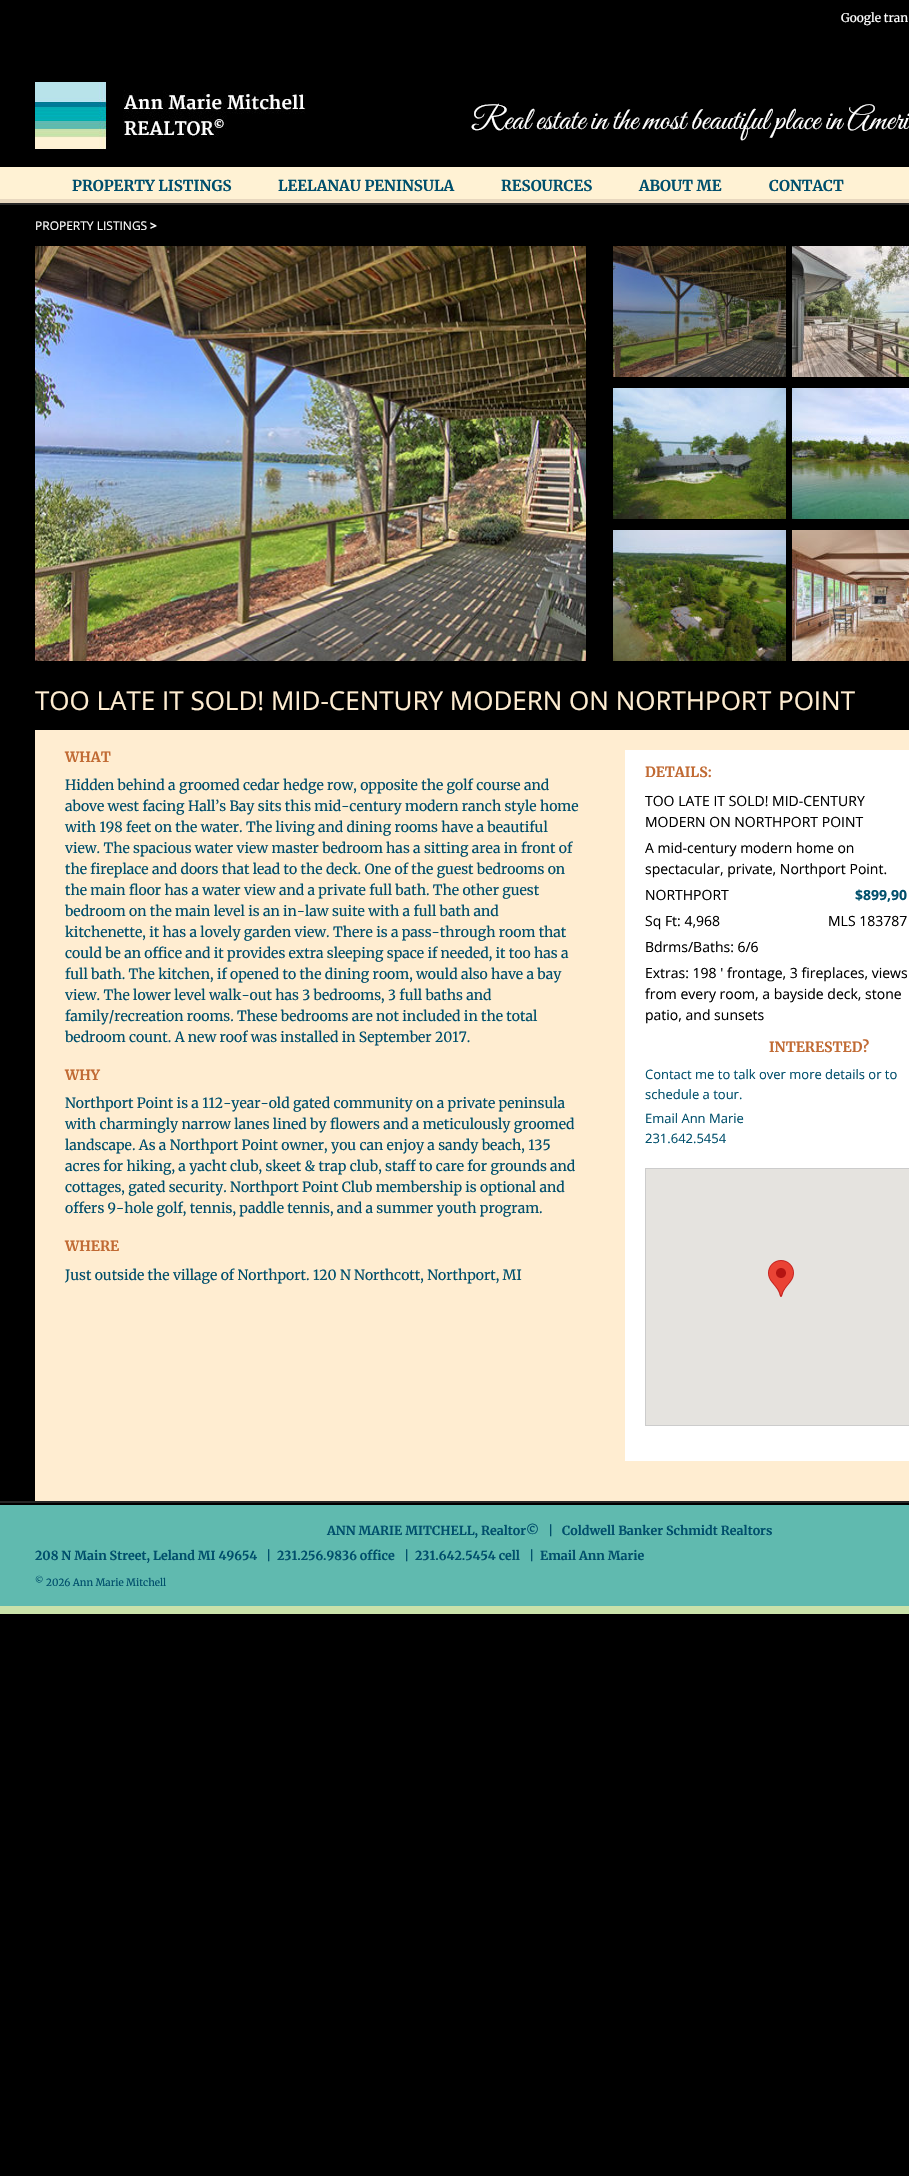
void draw(SkCanvas* c) {
SkPaint p;
p.setAntiAlias(true);
auto F=[&](const char* family, int weight, float size, bool italic = false){SkFontStyle style(weight, SkFontStyle::kNormal_Width,italic ? SkFontStyle::kItalic_Slant : SkFontStyle::kUpright_Slant);SkFont result(fontMgr->matchFamilyStyle(family, style), size);result.setSubpixel(true);return result;};
auto T=[&](const char* s, float x, float y, const SkFont& font){c->drawString(s, x, y, font, p);};
auto R=[&](float x, float y, float w, float h){c->drawRect(SkRect::MakeXYWH(x, y, w, h), p);};
auto I=[&](const char* path, float x, float y, float w, float h){auto image = SkImages::DeferredFromEncodedData(SkData::MakeFromFileName(path));c->drawImageRect(image, SkRect::MakeXYWH(x, y, w, h), SkSamplingOptions());};
c->clear(0xff000000);
p.setColor(0xff262626);
R(0,203,909,2);
auto f1 = F("Merriweather",400,12);
p.setColor(0xffffffff);
T("Google tran",841,22,f1);
I("1.png",35,82,271,68);
auto f2 = F("Great Vibes",400,32);
T("Real estate in the most beautiful place in Ameri",471,129,f2);
p.setColor(0xfffff2d4);
R(0,167,909,32);
p.setColor(0xffe8d8bf);
R(0,199,909,4);
auto f3 = F("Merriweather",700,15);
p.setColor(0xff004f6c);
T("PROPERTY LISTINGS",72,191,f3);
T("LEELANAU PENINSULA",278,191,f3);
T("RESOURCES",501,191,f3);
T("ABOUT ME",639,191,f3);
T("CONTACT",769,191,f3);
p.setColor(0xff262626);
R(0,1501,909,2);
auto f4 = F("Open Sans",400,12);
p.setColor(0xffffffff);
T("PROPERTY LISTINGS",35,230,f4);
auto f5 = F("Open Sans",700,12);
T(">",150,230,f5);
I("2.png",35,246,551,415);
I("3.png",613,246,173,131);
I("4.png",792,246,117,131);
I("5.png",613,388,173,131);
I("6.png",792,388,117,131);
I("7.png",613,530,173,131);
I("8.png",792,530,117,131);
auto f6 = F("Open Sans",400,26);
p.setColor(0xffffedd1);
T("TOO LATE IT SOLD! MID-CENTURY MODERN ON NORTHPORT POINT",35,710,f6);
R(35,730,874,771);
auto f7 = F("Merriweather",700,14);
p.setColor(0xffc16a33);
T("WHAT",65,762,f7);
auto f8 = F("Merriweather",400,14);
p.setColor(0xff004f6c);
T("Hidden behind a groomed cedar hedge row, opposite the golf course and",65,790,f8);
T("above west facing Hall’s Bay sits this mid-century modern ranch style home",65,811,f8);
T("with 198 feet on the water. The living and dining rooms have a beautiful",65,832,f8);
T("view. The spacious water view master bedroom has a sitting area in front of",65,853,f8);
T("the fireplace and doors that lead to the deck. One of the guest bedrooms on",65,874,f8);
T("the main floor has a water view and a private full bath. The other guest",65,895,f8);
T("bedroom on the main level is an in-law suite with a full bath and",65,916,f8);
T("kitchenette, it has a lovely garden view. There is a pass-through room that",65,937,f8);
T("could be an office and it provides extra sleeping space if needed, it too has a",65,958,f8);
T("full bath. The kitchen, if opened to the dining room, would also have a bay",65,979,f8);
T("view. The lower level walk-out has 3 bedrooms, 3 full baths and",65,1000,f8);
T("family/recreation rooms. These bedrooms are not included in the total",65,1021,f8);
T("bedroom count. A new roof was installed in September 2017.",65,1042,f8);
p.setColor(0xffc16a33);
T("WHY",65,1080,f7);
p.setColor(0xff004f6c);
T("Northport Point is a 112-year-old gated community on a private peninsula",65,1108,f8);
T("with charmingly narrow lanes lined by flowers and a meticulously groomed",65,1129,f8);
T("landscape. As a Northport Point owner, you can enjoy a sandy beach, 135",65,1150,f8);
T("acres for hiking, a yacht club, skeet & trap club, staff to care for grounds and",65,1171,f8);
T("cottages, gated security. Northport Point Club membership is optional and",65,1192,f8);
T("offers 9-hole golf, tennis, paddle tennis, and a summer youth program.",65,1213,f8);
p.setColor(0xffc16a33);
T("WHERE",65,1251,f7);
p.setColor(0xff004f6c);
T("Just outside the village of Northport. 120 N Northcott, Northport, MI",65,1280,f8);
p.setColor(0xffffffff);
R(625,750,284,711);
p.setColor(0xffc16a33);
T("DETAILS:",645,777,f7);
auto f9 = F("Open Sans",400,14);
p.setColor(0xff000000);
T("TOO LATE IT SOLD! MID-CENTURY",645,806,f9);
T("MODERN ON NORTHPORT POINT",645,827,f9);
T("A mid-century modern home on",645,853,f9);
T("spectacular, private, Northport Point.",645,874,f9);
T("NORTHPORT",645,900,f9);
auto f10 = F("Open Sans",700,14);
p.setColor(0xff004f6c);
T("$899,90",855,900,f10);
p.setColor(0xff000000);
T("Sq Ft: 4,968",645,926,f9);
T("MLS 183787",828,926,f9);
T("Bdrms/Baths: 6/6",645,952,f9);
T("Extras: 198 ' frontage, 3 fireplaces, views",645,978,f9);
T("from every room, a bayside deck, stone",645,999,f9);
T("patio, and sunsets",645,1020,f9);
p.setColor(0xffc16a33);
T("INTERESTED?",769,1052,f7);
auto f11 = F("Open Sans",400,13);
p.setColor(0xff004f6c);
T("Contact me to talk over more details or to",645,1079,f11);
T("schedule a tour.",645,1099,f11);
T("Email Ann Marie",645,1123,f11);
T("231.642.5454",645,1143,f11);
p.setStroke(true);
p.setStrokeWidth(1);
p.setColor(0xffcccccc);
c->drawRect(SkRect::MakeXYWH(645.5,1168.5,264,257),p);
p.setStroke(false);
p.setColor(0xffe5e3df);
R(646,1169,263,256);
I("9.png",768,1260,26,37);
p.setColor(0xff60baaf);
R(0,1505,909,101);
p.setColor(0xffcae2aa);
R(0,1606,909,8);
auto f12 = F("Merriweather",700,12.5);
p.setColor(0xff004f6c);
T("ANN MARIE MITCHELL, Realtor©",327,1535,f12);
T("|",548,1535,f12);
T("Coldwell Banker Schmidt Realtors",562,1535,f12);
T("208 N Main Street, Leland MI 49654",35,1560,f12);
T("|",266,1560,f12);
T("231.256.9836 office",277,1560,f12);
T("|",404,1560,f12);
T("231.642.5454 cell",415,1560,f12);
T("|",529,1560,f12);
T("Email Ann Marie",540,1560,f12);
auto f13 = F("Merriweather",400,8);
T("©",35,1583,f13);
auto f14 = F("Merriweather",400,10);
T("2026 Ann Marie Mitchell",46,1586,f14);
}
